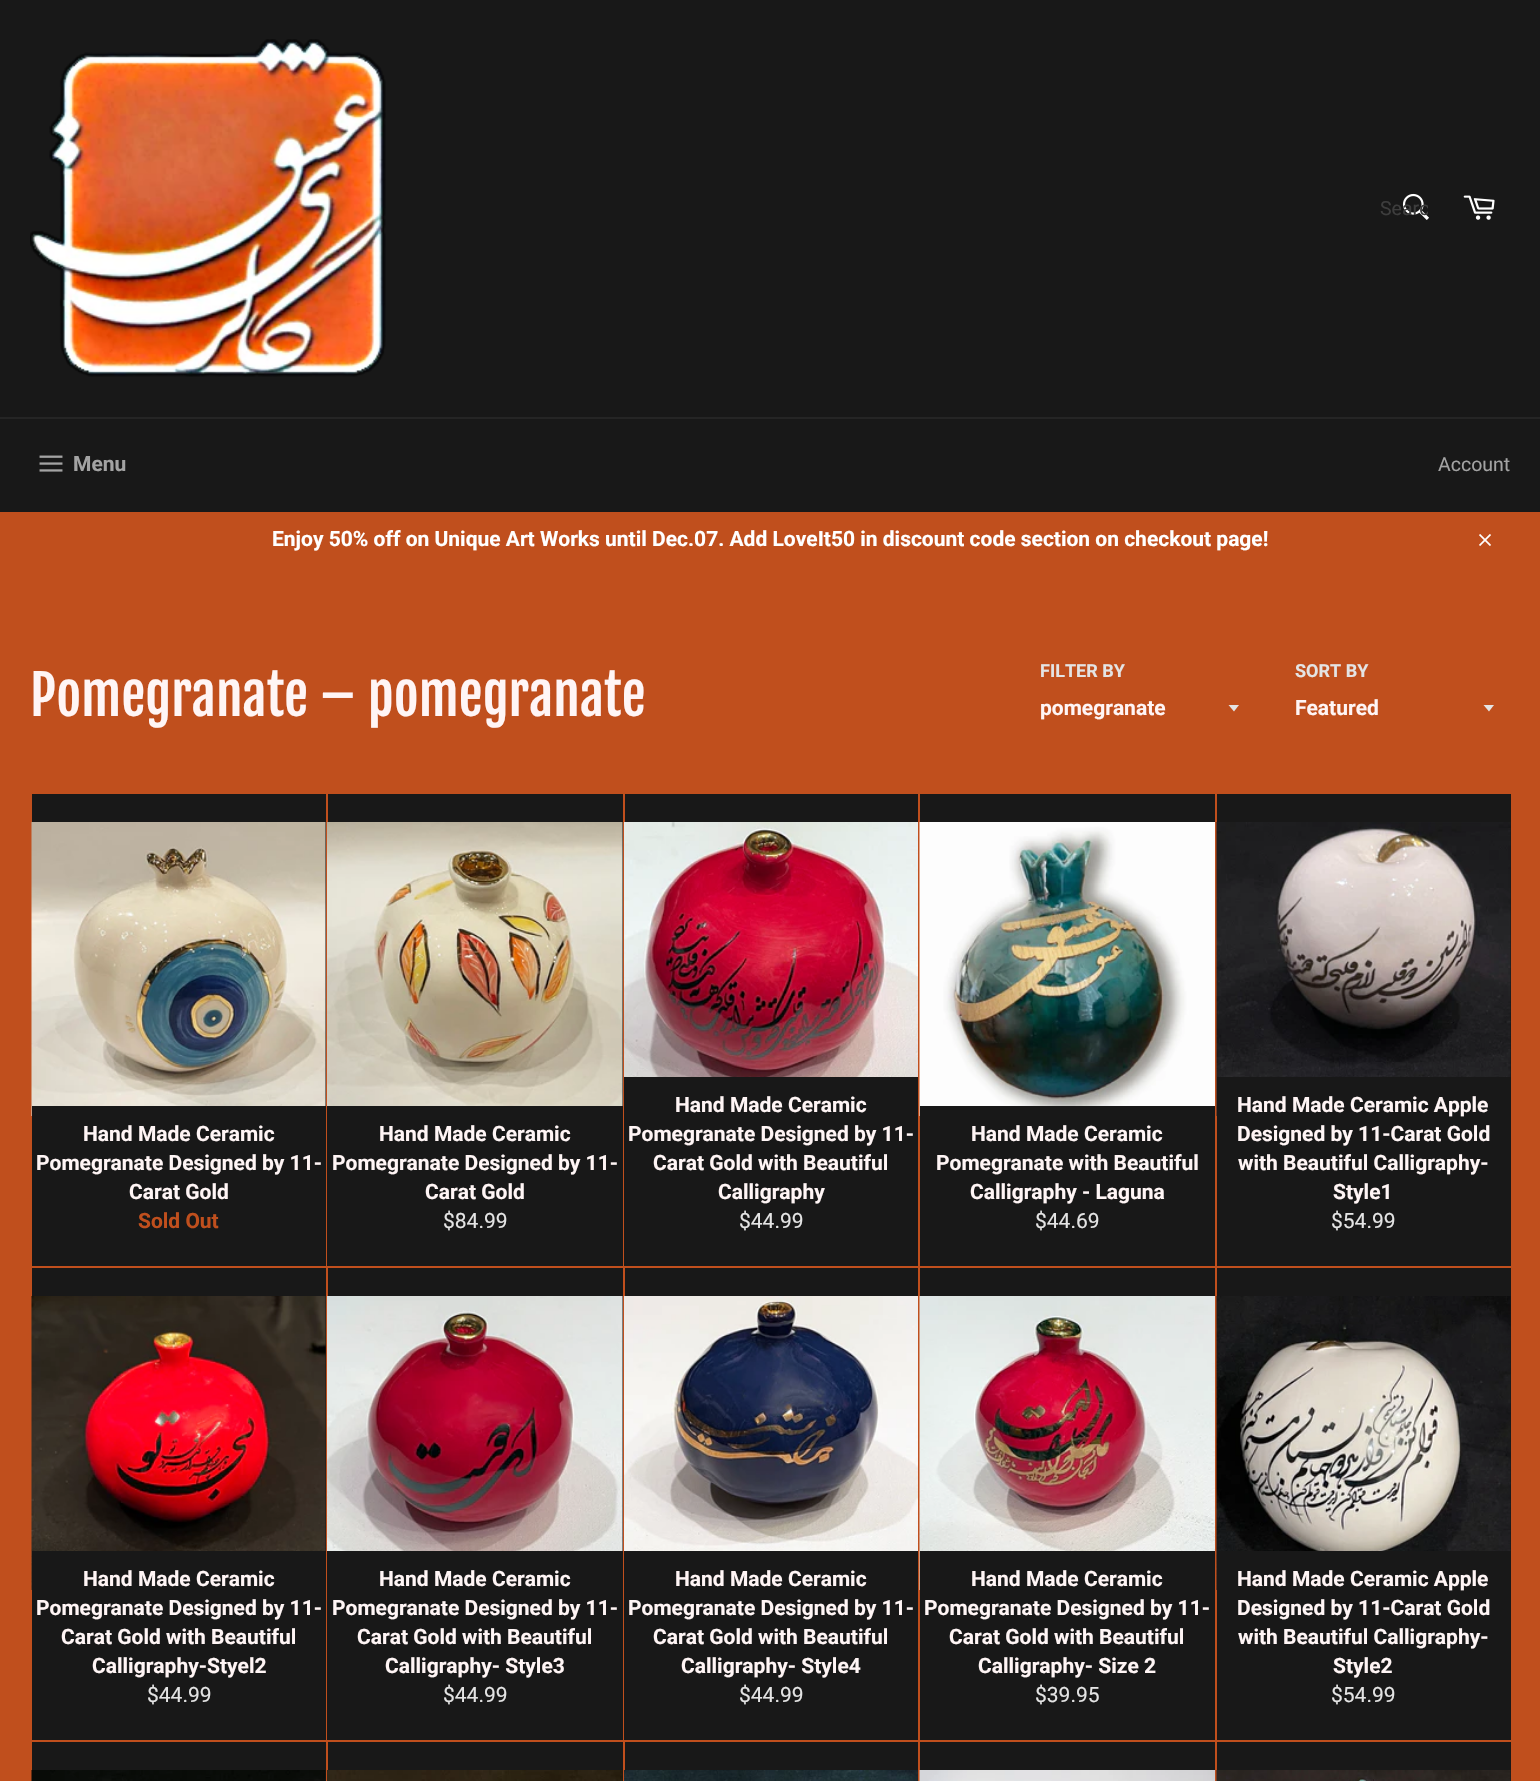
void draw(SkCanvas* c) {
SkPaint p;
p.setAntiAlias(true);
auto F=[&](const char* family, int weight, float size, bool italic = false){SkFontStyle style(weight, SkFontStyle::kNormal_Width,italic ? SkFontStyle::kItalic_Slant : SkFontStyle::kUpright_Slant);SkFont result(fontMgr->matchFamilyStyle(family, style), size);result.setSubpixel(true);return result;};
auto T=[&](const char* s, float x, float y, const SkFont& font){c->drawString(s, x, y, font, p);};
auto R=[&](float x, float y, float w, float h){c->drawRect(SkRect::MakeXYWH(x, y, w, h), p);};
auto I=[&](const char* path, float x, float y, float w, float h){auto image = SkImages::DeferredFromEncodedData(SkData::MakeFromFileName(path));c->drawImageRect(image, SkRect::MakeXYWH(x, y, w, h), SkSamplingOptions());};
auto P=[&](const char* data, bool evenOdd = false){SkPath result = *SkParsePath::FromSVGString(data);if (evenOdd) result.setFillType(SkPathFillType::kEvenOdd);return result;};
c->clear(0xffc04f1d);
p.setColor(0xff181818);
R(0,0,1540,417);
I("1.png",30,39,356,338);
I("2.png",1402,193,27,27);
c->save();
c->clipRect(SkRect::MakeXYWH(1380,198,48,23));
auto f1 = F("Roboto",400,19.5);
p.setColor(0xff3d3d3d);
T("Searc",1380,215,f1);
c->restore();
I("3.png",1463,195,32,25);
p.setColor(0xff181818);
R(0,419,1540,93);
p.setColor(0xff252525);
R(0,417,1540,2);
I("4.png",39,455,24,17);
auto f2 = F("Roboto",700,21);
p.setColor(0xffa3a3a3);
T("Menu",73,471,f2);
T("Account",1438,471,f1);
p.setColor(0xffffffff);
T("Enjoy 50% off on Unique Art Works until Dec.07. Add LoveIt50 in discount code section on checkout page!",272,546,f2);
I("5.png",1479,534,12,12);
auto f3 = F("Fjalla One",400,54);
p.setColor(0xfffff5f5);
T("Pomegranate – pomegranate",30,716,f3);
auto f4 = F("Roboto",700,18);
p.setColor(0xffe4e4e4);
T("FILTER BY",1040,677,f4);
c->drawPath(P("M1228.5 705l5.5 6.5l5-6.5z"),p);
p.setColor(0xfffff5f5);
T("pomegranate",1040,715,f2);
p.setColor(0xffe4e4e4);
T("SORT BY",1295,677,f4);
c->drawPath(P("M1483.5 705l5.5 6.5l5-6.5z"),p);
p.setColor(0xfffff5f5);
T("Featured",1295,715,f2);
p.setColor(0xff181818);
R(32,794,294,312);
I("6.png",31,822,295,294);
R(32,1106,294,160);
p.setColor(0xfffff5f5);
T("Hand Made Ceramic",83,1141,f2);
T("Pomegranate Designed by 11-",36,1170,f2);
T("Carat Gold",129,1199,f2);
p.setColor(0xffc04f1d);
T("Sold Out",138,1228,f2);
p.setColor(0xff181818);
R(328,794,295,312);
I("7.png",327,822,296,284);
R(327,1106,296,160);
p.setColor(0xfffff5f5);
T("Hand Made Ceramic",379,1141,f2);
T("Pomegranate Designed by 11-",332,1170,f2);
T("Carat Gold",425,1199,f2);
auto f5 = F("Roboto",400,21);
p.setColor(0xffe4e4e4);
T("$84.99",443,1228,f5);
p.setColor(0xff181818);
R(625,794,293,28);
I("8.png",624,822,294,255);
R(624,1077,294,189);
p.setColor(0xfffff5f5);
T("Hand Made Ceramic",675,1112,f2);
T("Pomegranate Designed by 11-",628,1141,f2);
T("Carat Gold with Beautiful",653,1170,f2);
T("Calligraphy",718,1199,f2);
p.setColor(0xffe4e4e4);
T("$44.99",739,1228,f5);
p.setColor(0xff181818);
R(920,794,295,28);
I("9.png",919,822,296,294);
R(920,1106,295,160);
p.setColor(0xfffff5f5);
T("Hand Made Ceramic",971,1141,f2);
T("Pomegranate with Beautiful",936,1170,f2);
T("Calligraphy - Laguna",970,1199,f2);
p.setColor(0xffe4e4e4);
T("$44.69",1035,1228,f5);
p.setColor(0xff181818);
R(1217,794,294,283);
I("10.png",1216,822,295,294);
R(1217,1077,294,189);
p.setColor(0xfffff5f5);
T("Hand Made Ceramic Apple",1237,1112,f2);
T("Designed by 11-Carat Gold",1237,1141,f2);
T("with Beautiful Calligraphy-",1238,1170,f2);
T("Style1",1333,1199,f2);
p.setColor(0xffe4e4e4);
T("$54.99",1331,1228,f5);
p.setColor(0xff181818);
R(32,1268,294,283);
I("11.png",31,1296,295,294);
R(32,1551,294,189);
p.setColor(0xfffff5f5);
T("Hand Made Ceramic",83,1586,f2);
T("Pomegranate Designed by 11-",36,1615,f2);
T("Carat Gold with Beautiful",61,1644,f2);
T("Calligraphy-Styel2",92,1673,f2);
p.setColor(0xffe4e4e4);
T("$44.99",147,1702,f5);
p.setColor(0xff181818);
R(328,1268,295,283);
I("12.png",327,1296,296,255);
R(327,1551,296,189);
p.setColor(0xfffff5f5);
T("Hand Made Ceramic",379,1586,f2);
T("Pomegranate Designed by 11-",332,1615,f2);
T("Carat Gold with Beautiful",357,1644,f2);
T("Calligraphy- Style3",385,1673,f2);
p.setColor(0xffe4e4e4);
T("$44.99",443,1702,f5);
p.setColor(0xff181818);
R(625,1268,293,28);
I("13.png",624,1296,294,255);
R(624,1551,294,189);
p.setColor(0xfffff5f5);
T("Hand Made Ceramic",675,1586,f2);
T("Pomegranate Designed by 11-",628,1615,f2);
T("Carat Gold with Beautiful",653,1644,f2);
T("Calligraphy- Style4",681,1673,f2);
p.setColor(0xffe4e4e4);
T("$44.99",739,1702,f5);
p.setColor(0xff181818);
R(920,1268,295,28);
I("14.png",919,1296,296,294);
R(920,1551,295,189);
p.setColor(0xfffff5f5);
T("Hand Made Ceramic",971,1586,f2);
T("Pomegranate Designed by 11-",924,1615,f2);
T("Carat Gold with Beautiful",949,1644,f2);
T("Calligraphy- Size 2",978,1673,f2);
p.setColor(0xffe4e4e4);
T("$39.95",1035,1702,f5);
p.setColor(0xff181818);
R(1217,1268,294,283);
I("15.png",1216,1296,295,294);
R(1217,1551,294,189);
p.setColor(0xfffff5f5);
T("Hand Made Ceramic Apple",1237,1586,f2);
T("Designed by 11-Carat Gold",1237,1615,f2);
T("with Beautiful Calligraphy-",1238,1644,f2);
T("Style2",1333,1673,f2);
p.setColor(0xffe4e4e4);
T("$54.99",1331,1702,f5);
p.setColor(0xff181818);
R(32,1742,294,39);
I("16.png",31,1770,295,11);
R(328,1742,295,39);
I("17.png",327,1770,296,11);
R(625,1742,293,28);
I("18.png",624,1770,294,11);
R(920,1742,295,28);
I("19.png",919,1770,296,11);
R(1217,1742,294,39);
I("20.png",1216,1770,295,11);
}
